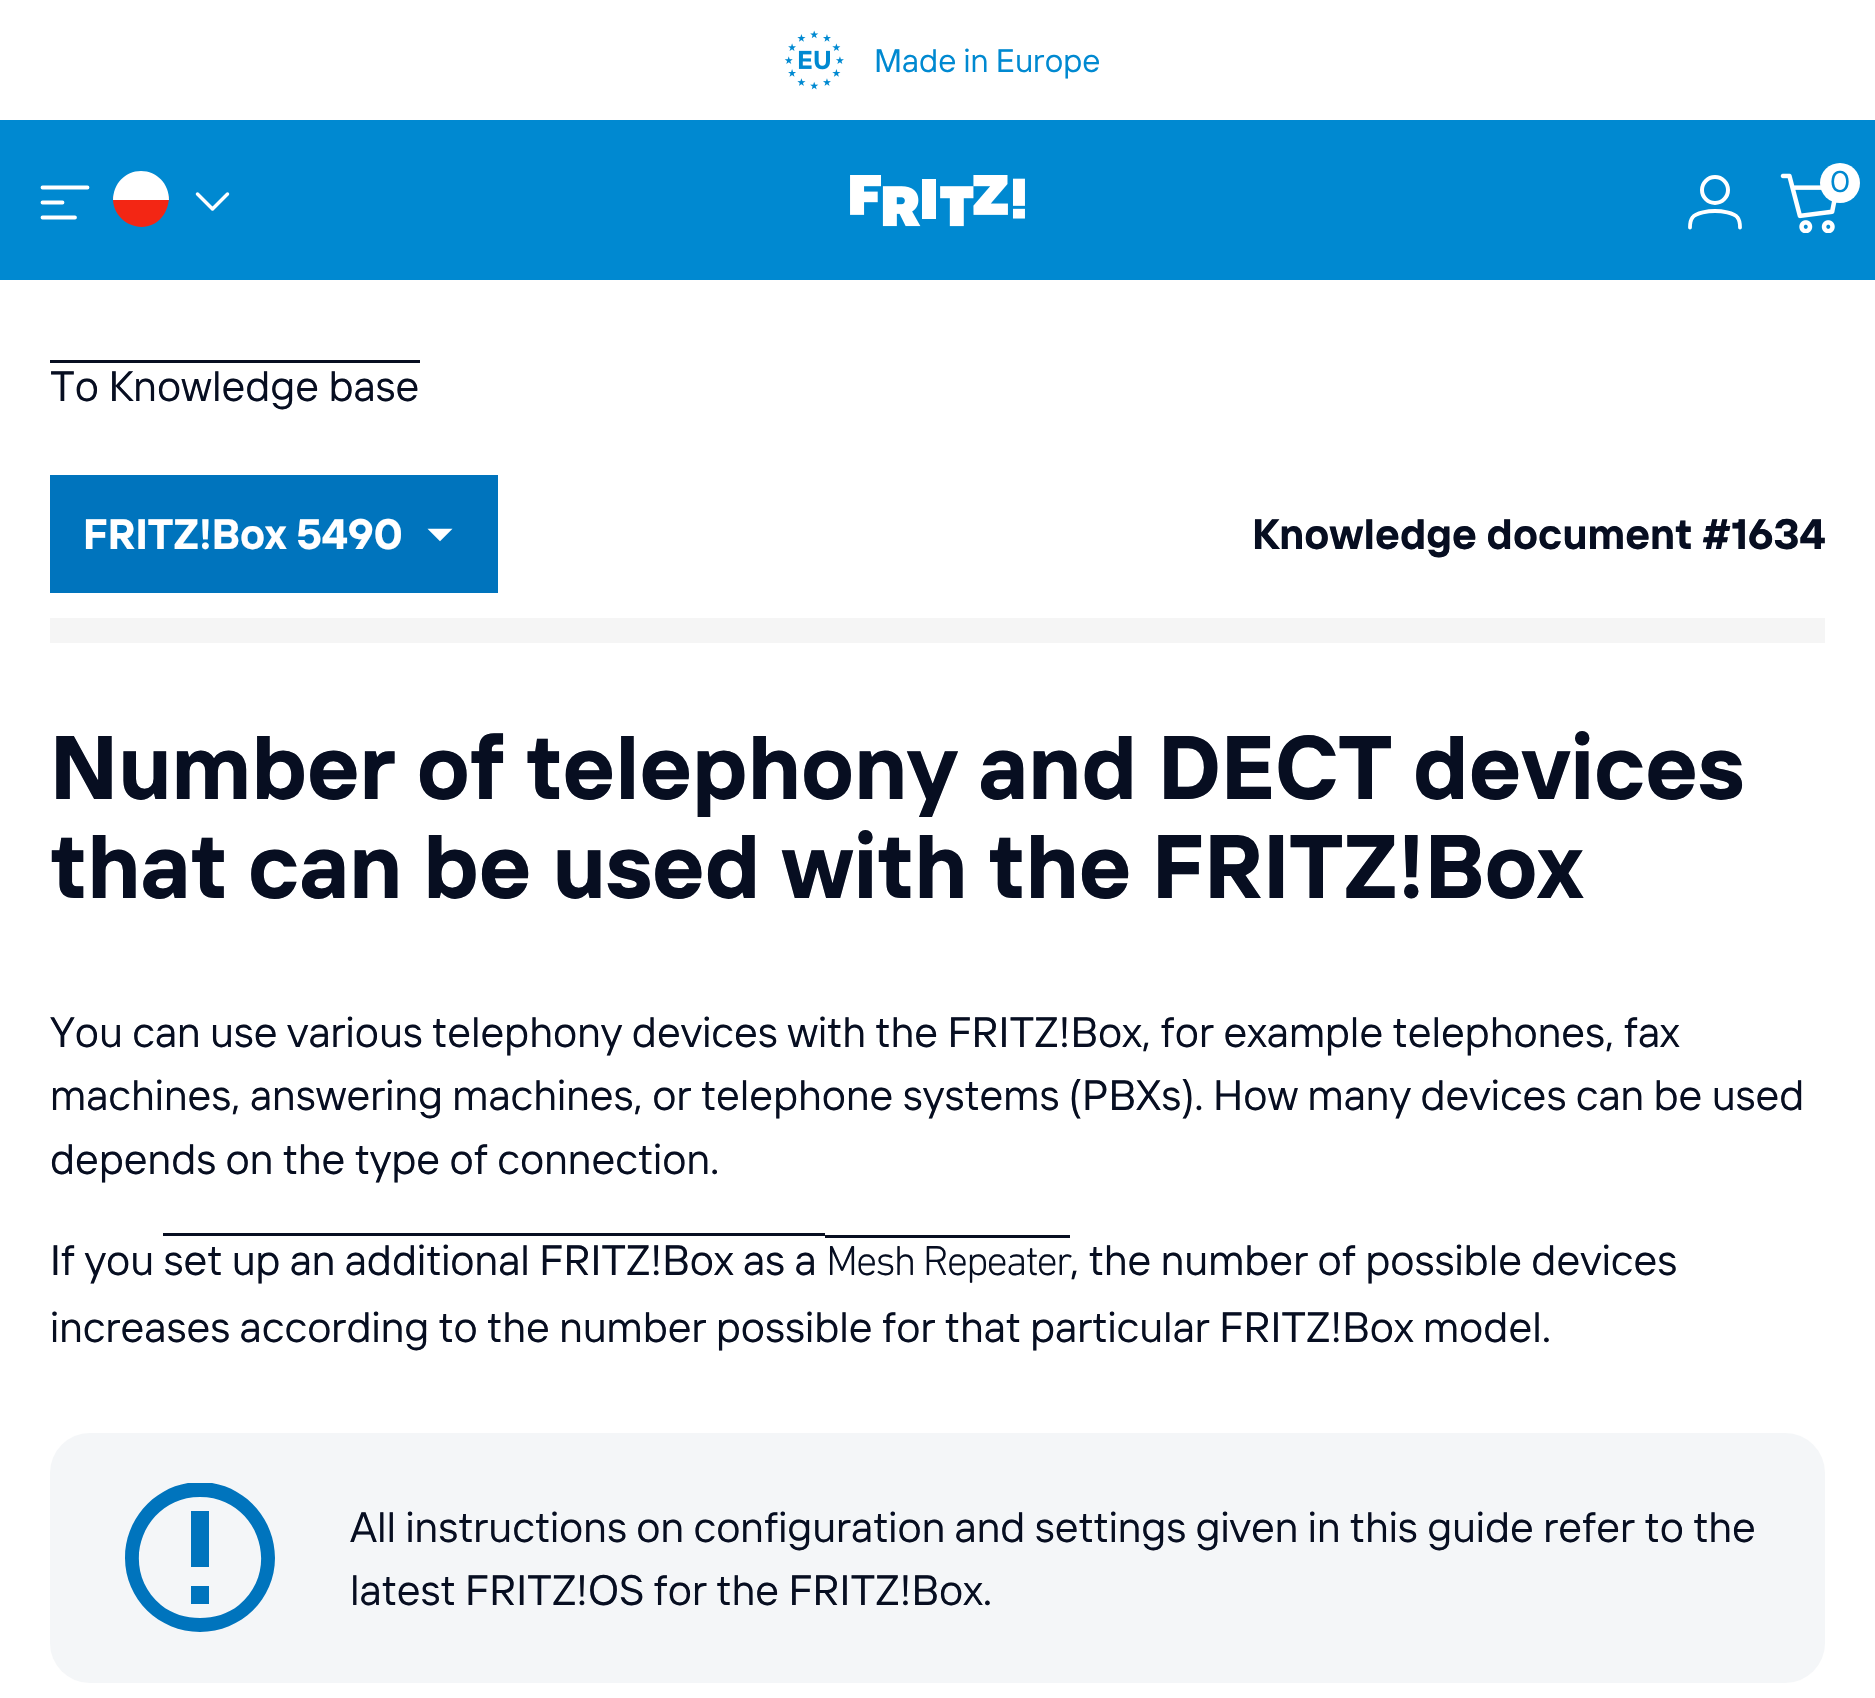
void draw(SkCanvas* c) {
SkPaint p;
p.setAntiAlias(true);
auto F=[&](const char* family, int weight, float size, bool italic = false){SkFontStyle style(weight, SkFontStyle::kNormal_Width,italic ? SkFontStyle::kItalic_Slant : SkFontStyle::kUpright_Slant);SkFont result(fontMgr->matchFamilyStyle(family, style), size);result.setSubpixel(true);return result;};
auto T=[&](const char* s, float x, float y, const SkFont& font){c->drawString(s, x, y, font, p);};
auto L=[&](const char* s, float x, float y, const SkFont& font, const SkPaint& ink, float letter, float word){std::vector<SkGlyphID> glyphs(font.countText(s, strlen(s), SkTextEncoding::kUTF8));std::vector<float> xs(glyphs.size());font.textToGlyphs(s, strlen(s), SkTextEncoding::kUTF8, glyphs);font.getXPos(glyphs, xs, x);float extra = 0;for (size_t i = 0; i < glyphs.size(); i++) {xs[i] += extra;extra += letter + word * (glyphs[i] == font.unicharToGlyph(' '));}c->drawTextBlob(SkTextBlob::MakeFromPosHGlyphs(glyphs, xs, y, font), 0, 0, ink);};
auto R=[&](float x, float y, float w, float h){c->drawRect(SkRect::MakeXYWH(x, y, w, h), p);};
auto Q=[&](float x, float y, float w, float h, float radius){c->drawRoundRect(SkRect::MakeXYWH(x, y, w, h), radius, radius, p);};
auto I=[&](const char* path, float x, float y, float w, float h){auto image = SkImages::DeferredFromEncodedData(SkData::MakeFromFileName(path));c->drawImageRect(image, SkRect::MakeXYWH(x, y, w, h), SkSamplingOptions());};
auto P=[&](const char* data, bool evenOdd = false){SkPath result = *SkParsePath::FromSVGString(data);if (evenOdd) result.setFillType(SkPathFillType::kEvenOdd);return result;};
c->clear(0xffffffff);
I("1.png",784,30,60,60);
auto f1 = F("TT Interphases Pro",400,32.5);
p.setColor(0xff0089d1);
T("Made in Europe",874,72,f1);
R(0,120,1875,160);
p.setStroke(true);
p.setStrokeWidth(3.8);
p.setStrokeCap(SkPaint::kRound_Cap);
p.setColor(0xffffffff);
c->drawPath(P("M42.5 187.5h45m-45 15h20m-20 15h32.5"),p);
p.setStroke(false);
p.setColor(0xfff32614);
c->drawPath(P("M169 196h-56c-2 27 32 42 49 21c5-6 7-14 7-21z"),p);
p.setColor(0xffffffff);
c->drawPath(P("M141 171c16 0 28 13 28 29h-56c0-16 12-29 28-29z"),p);
p.setStroke(true);
p.setStrokeWidth(3.5);
p.setStrokeJoin(SkPaint::kRound_Join);
c->drawPath(P("M197.5 194l15 15l15-15"),p);
I("2.png",850,175,175,52);
p.setStrokeWidth(4);
p.setStrokeCap(SkPaint::kButt_Cap);
p.setStrokeJoin(SkPaint::kMiter_Join);
c->drawCircle(1715,190,13,p);
p.setStrokeWidth(3.8);
p.setStrokeCap(SkPaint::kRound_Cap);
c->drawPath(P("M1715 211c6 0 19 1.5 22.5 6.5c2.5 3 2.5 6.5 2.5 10m-25-16.5c-6 0-19 1.5-22.5 6.5c-2.5 3-2.5 6.5-2.5 10"),p);
I("3.png",1780,173,57,60);
p.setStroke(false);
c->drawCircle(1840,183,20,p);
auto f2 = F("TT Interphases Pro",400,30);
p.setColor(0xff0089d1);
T("0",1830,192,f2);
auto f3 = F("TT Interphases Pro",400,42.5);
p.setColor(0xff070e21);
T("To Knowledge base",50,401,f3);
R(50,360,370,3);
p.setColor(0xfff5f5f5);
R(50,618,1775,25);
p.setColor(0xff0074bd);
R(50,475,448,118);
auto f4 = F("TT Interphases Pro",700,42.5);
p.setColor(0xffffffff);
T("FRITZ!Box 5490",83,549,f4);
I("4.png",427,528,26,14);
p.setColor(0xff070e21);
T("Knowledge document #1634",1252,549,f4);
auto f5 = F("TT Interphases Pro",700,90);
T("Number of telephony and DECT devices",50,799,f5);
T("that can be used with the FRITZ!Box",50,898,f5);
T("You can use various telephony devices with the FRITZ!Box, for example telephones, fax",50,1047,f3);
T("machines, answering machines, or telephone systems (PBXs). How many devices can be used",50,1110,f3);
T("depends on the type of connection.",50,1174,f3);
T("If you set up an additional FRITZ!Box as a",50,1275,f3);
T(", the number of possible devices",1070,1275,f3);
auto f6 = F("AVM",300,42.5);
L("Mesh Repeater",826,1275,f6,p,-2.1,0);
R(163,1233,662,3);
R(825,1235,245,3);
T("increases according to the number possible for that particular FRITZ!Box model.",50,1342,f3);
p.setColor(0xfff4f6f8);
Q(50,1433,1775,250,40);
c->save();
c->clipRect(SkRect::MakeXYWH(125,1483,150,150));
p.setColor(0xff0074bd);
c->drawPath(P("M200 1497c-57 0-83 71-39 108c11 9 25 13 39 13c14 0 28-4 39-13c44-37 18-108-39-108zm0-15c41 0 75 34 75 76c0 41-34 74-75 74c-41 0-75-33-75-74c0-42 34-76 75-76zm-9 104h18v18h-18zm0-75h18v56h-18z"),p);
c->restore();
p.setColor(0xff070e21);
T("All instructions on configuration and settings given in this guide refer to the",350,1542,f3);
T("latest FRITZ!OS for the FRITZ!Box.",350,1605,f3);
}
